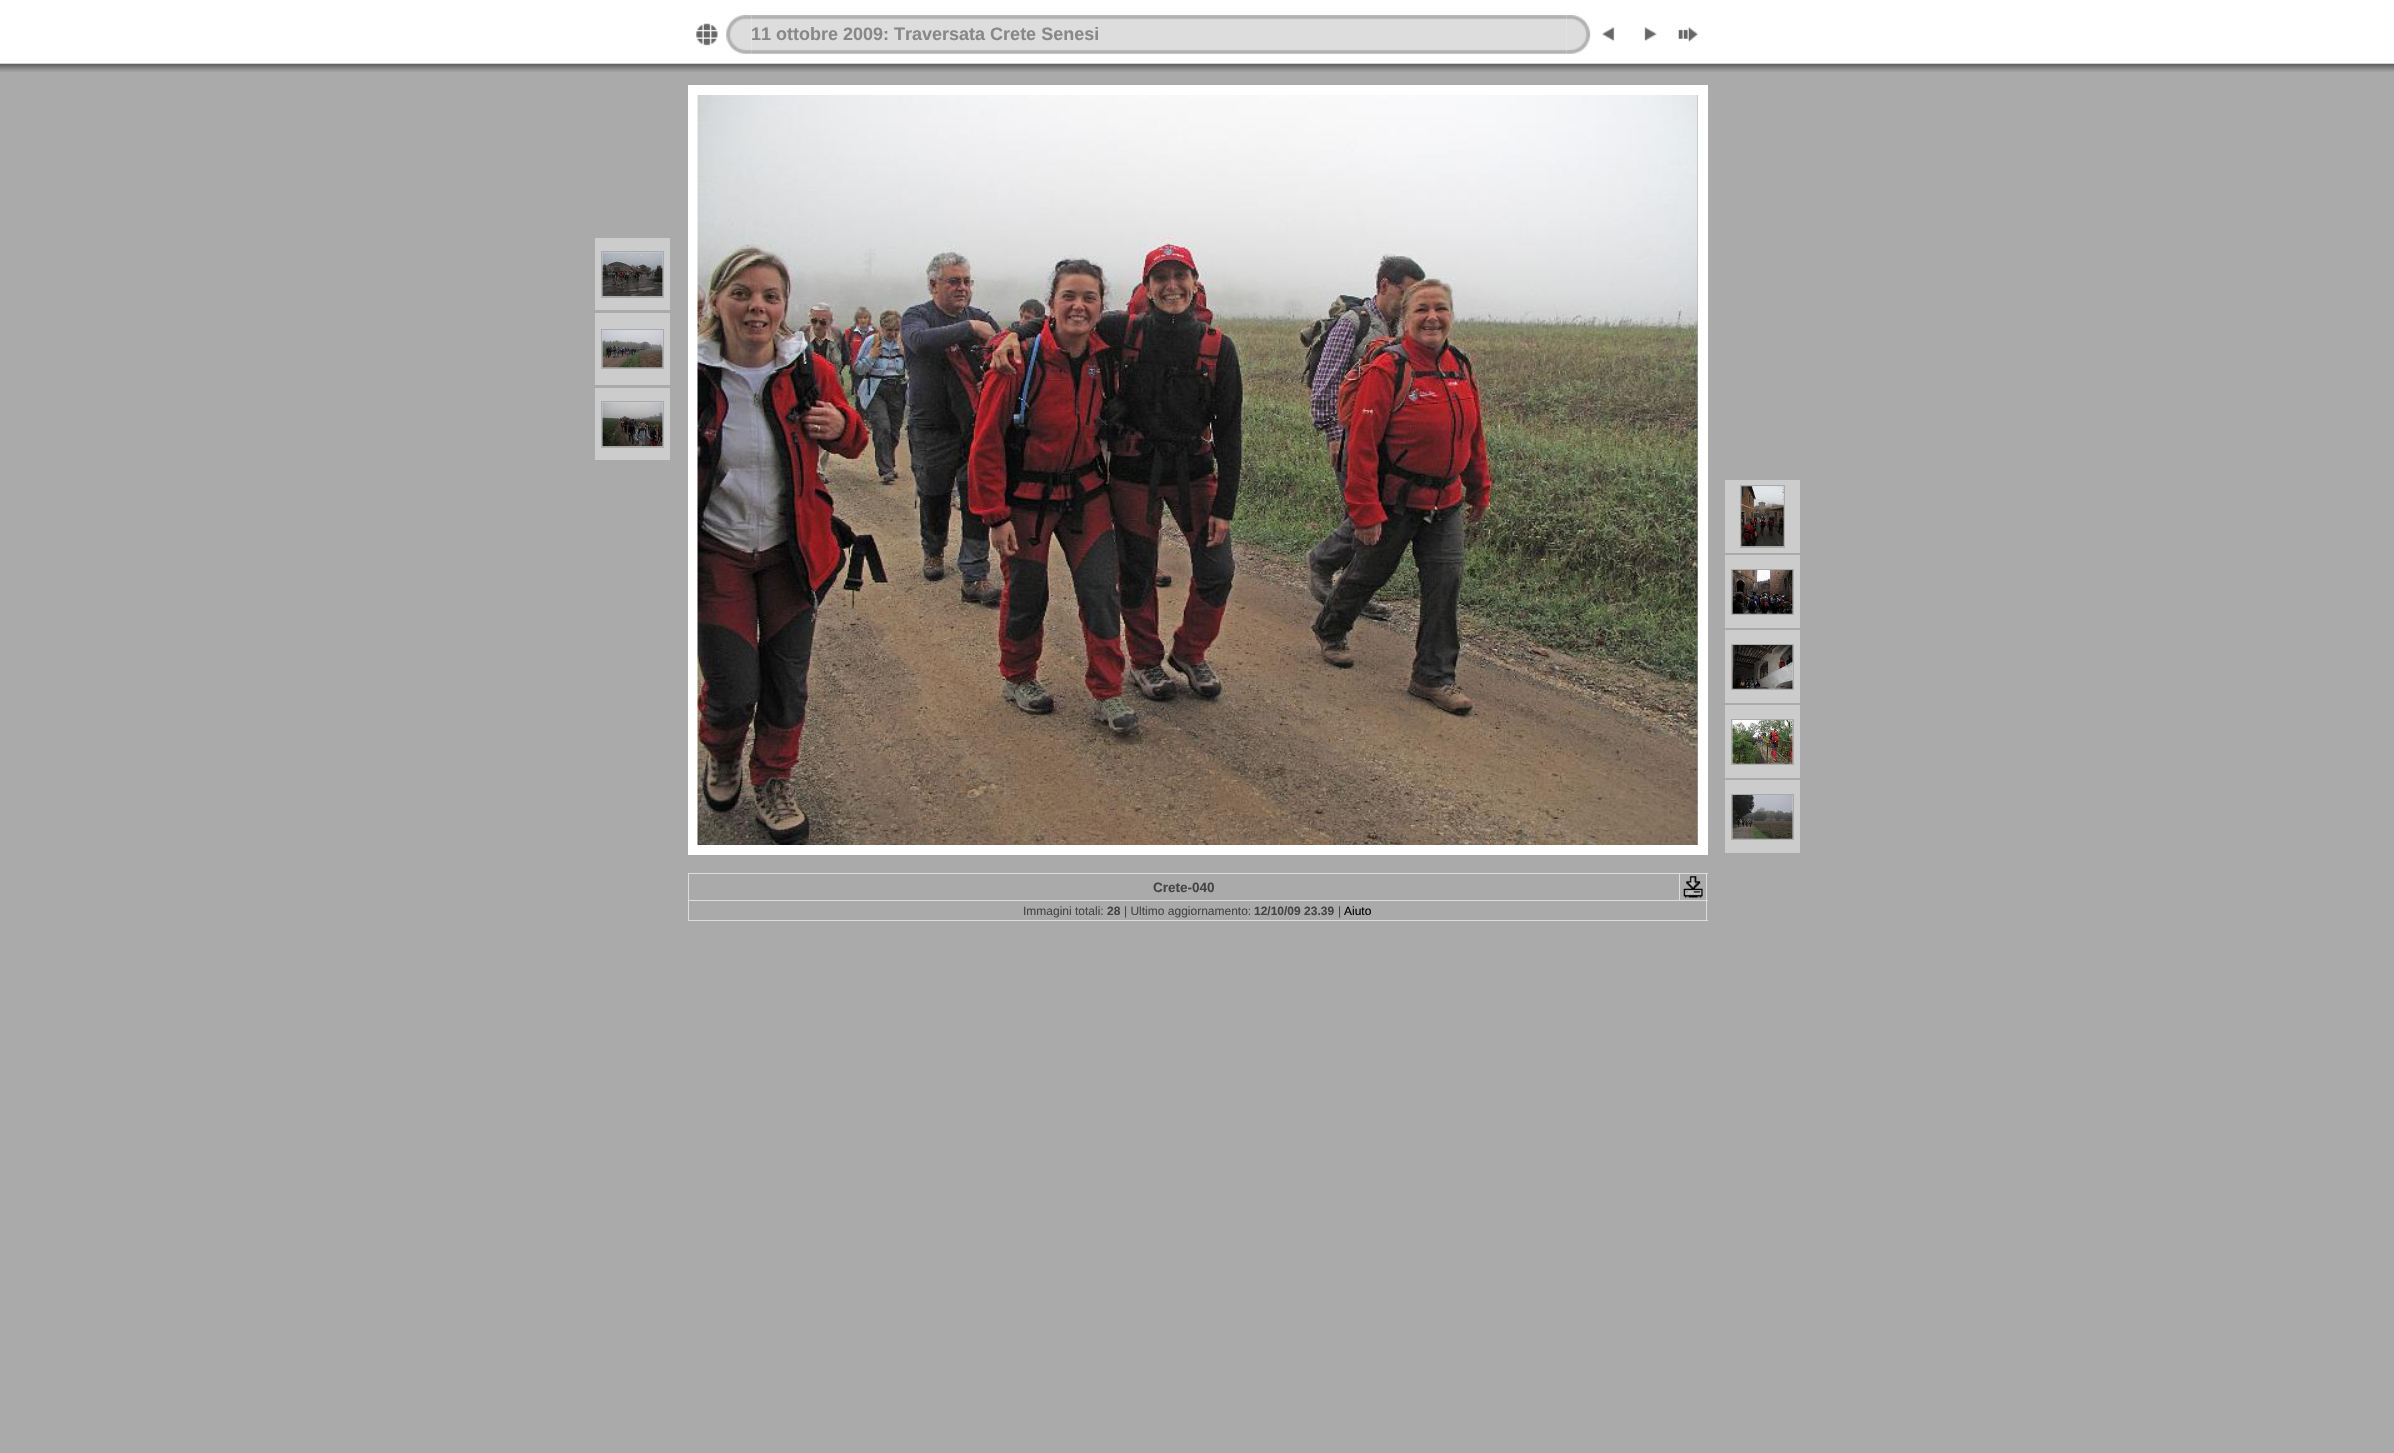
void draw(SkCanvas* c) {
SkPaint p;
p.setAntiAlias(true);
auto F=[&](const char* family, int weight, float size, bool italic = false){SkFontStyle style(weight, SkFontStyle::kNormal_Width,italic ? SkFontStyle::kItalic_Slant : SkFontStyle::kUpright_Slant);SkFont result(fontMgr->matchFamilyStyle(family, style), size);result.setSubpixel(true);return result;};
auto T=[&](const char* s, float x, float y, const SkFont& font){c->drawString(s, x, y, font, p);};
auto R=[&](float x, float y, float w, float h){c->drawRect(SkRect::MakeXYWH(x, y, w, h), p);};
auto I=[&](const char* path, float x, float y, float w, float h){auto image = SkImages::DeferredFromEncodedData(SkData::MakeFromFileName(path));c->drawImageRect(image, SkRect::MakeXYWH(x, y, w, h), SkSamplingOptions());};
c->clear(0xffaaaaaa);
I("1.png",0,0,2394,72);
I("2.png",696,23,22,23);
I("4.png",751,15,816,39);
I("3.png",726,15,26,39);
auto f1 = F("Liberation Sans",700,18);
p.setColor(0xff888888);
T("11 ottobre 2009: Traversata Crete Senesi",751,40,f1);
I("5.png",1566,15,25,39);
I("6.png",1602,27,13,15);
I("7.png",1644,27,13,15);
I("8.png",1678,27,20,15);
p.setColor(0xffcccccc);
R(595,238,75,72);
p.setStroke(true);
p.setStrokeWidth(1);
p.setColor(0xffaaaaaa);
c->drawRect(SkRect::MakeXYWH(601.5,251.5,62,46),p);
I("9.png",602,252,61,45);
p.setStroke(false);
p.setColor(0xffcccccc);
R(595,313,75,72);
p.setStroke(true);
p.setColor(0xffaaaaaa);
c->drawRect(SkRect::MakeXYWH(601.5,329.5,62,39),p);
I("10.png",602,330,61,38);
p.setStroke(false);
p.setColor(0xffcccccc);
R(595,388,75,72);
p.setStroke(true);
p.setColor(0xffaaaaaa);
c->drawRect(SkRect::MakeXYWH(601.5,401.5,62,46),p);
I("11.png",602,402,61,45);
p.setStrokeWidth(10);
p.setColor(0xffffffff);
c->drawRect(SkRect::MakeXYWH(693,90,1010,760),p);
I("12.png",697,95,1001,750);
p.setStroke(false);
p.setColor(0xffcccccc);
R(1725,480,75,73);
p.setStroke(true);
p.setStrokeWidth(1);
p.setColor(0xffaaaaaa);
c->drawRect(SkRect::MakeXYWH(1740.5,485.5,44,62),p);
I("13.png",1741,486,43,61);
p.setStroke(false);
p.setColor(0xffcccccc);
R(1725,555,75,73);
p.setStroke(true);
p.setColor(0xffaaaaaa);
c->drawRect(SkRect::MakeXYWH(1731.5,569.5,62,45),p);
I("14.png",1732,570,61,44);
p.setStroke(false);
p.setColor(0xffcccccc);
R(1725,630,75,73);
p.setStroke(true);
p.setColor(0xffaaaaaa);
c->drawRect(SkRect::MakeXYWH(1731.5,644.5,62,45),p);
I("15.png",1732,645,61,44);
p.setStroke(false);
p.setColor(0xffcccccc);
R(1725,705,75,73);
p.setStroke(true);
p.setColor(0xffaaaaaa);
c->drawRect(SkRect::MakeXYWH(1731.5,719.5,62,45),p);
I("16.png",1732,720,61,44);
p.setStroke(false);
p.setColor(0xffcccccc);
R(1725,780,75,73);
p.setStroke(true);
p.setColor(0xffaaaaaa);
c->drawRect(SkRect::MakeXYWH(1731.5,794.5,62,45),p);
I("17.png",1732,795,61,44);
p.setStroke(false);
p.setColor(0xffdddddd);
R(688,873,1020,1);
R(1706,873,1,48);
R(688,920,1020,1);
R(688,873,1,48);
auto f2 = F("Liberation Sans",700,13.5);
p.setColor(0xff444444);
T("Crete-040",1153,892,f2);
p.setColor(0xffdddddd);
R(688,900,1020,1);
R(1679,873,1,28);
I("18.png",1683,876,20,22);
auto f3 = F("Liberation Sans",400,12);
p.setColor(0xff444444);
T("Immagini totali:",1023,915,f3);
auto f4 = F("Liberation Sans",700,12);
T("28",1107,915,f4);
T("| Ultimo aggiornamento:",1124,915,f3);
T("12/10/09 23.39",1254,915,f4);
T("|",1338,915,f3);
p.setColor(0xff000000);
T("Aiuto",1344,915,f3);
}
